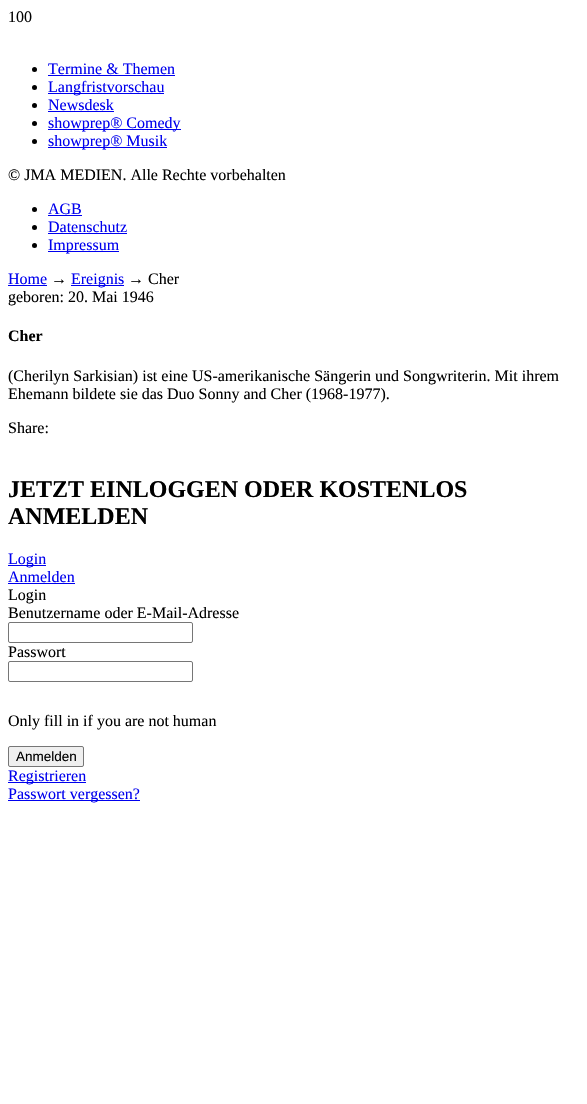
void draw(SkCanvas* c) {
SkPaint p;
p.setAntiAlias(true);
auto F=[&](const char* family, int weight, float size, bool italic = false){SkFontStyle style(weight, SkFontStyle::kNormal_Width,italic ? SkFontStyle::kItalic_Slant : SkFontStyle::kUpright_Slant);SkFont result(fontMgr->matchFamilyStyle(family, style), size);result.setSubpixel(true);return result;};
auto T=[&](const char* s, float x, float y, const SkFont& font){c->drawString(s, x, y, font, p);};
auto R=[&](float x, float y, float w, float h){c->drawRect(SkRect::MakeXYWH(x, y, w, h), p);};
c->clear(0xffffffff);
auto f1 = F("Liberation Serif",400,16);
p.setColor(0xff000000);
T("100",8,22,f1);
c->drawCircle(34.5,69.5,2.5,p);
p.setColor(0xff0000ee);
T("Termine & Themen",48,74,f1);
R(48,75,127,1);
p.setColor(0xff000000);
c->drawCircle(34.5,87.5,2.5,p);
p.setColor(0xff0000ee);
R(48,93,116,1);
T("Langfristvorschau",48,92,f1);
p.setColor(0xff000000);
c->drawCircle(34.5,105.5,2.5,p);
p.setColor(0xff0000ee);
T("Newsdesk",48,110,f1);
R(48,111,66,1);
p.setColor(0xff000000);
c->drawCircle(34.5,123.5,2.5,p);
p.setColor(0xff0000ee);
R(48,129,133,1);
T("showprep® Comedy",48,128,f1);
p.setColor(0xff000000);
c->drawCircle(34.5,141.5,2.5,p);
p.setColor(0xff0000ee);
R(48,147,119,1);
T("showprep® Musik",48,146,f1);
p.setColor(0xff000000);
T("© JMA MEDIEN. Alle Rechte vorbehalten",8,180,f1);
c->drawCircle(34.5,209.5,2.5,p);
p.setColor(0xff0000ee);
T("AGB",48,214,f1);
R(48,215,34,1);
p.setColor(0xff000000);
c->drawCircle(34.5,227.5,2.5,p);
p.setColor(0xff0000ee);
T("Datenschutz",48,232,f1);
R(48,233,79,1);
p.setColor(0xff000000);
c->drawCircle(34.5,245.5,2.5,p);
p.setColor(0xff0000ee);
R(48,251,71,1);
T("Impressum",48,250,f1);
T("Home",8,284,f1);
R(8,285,39,1);
p.setColor(0xff000000);
T("→",51,284,f1);
p.setColor(0xff0000ee);
R(71,285,53,1);
T("Ereignis",71,284,f1);
p.setColor(0xff000000);
T("→ Cher",128,284,f1);
T("geboren: 20. Mai 1946",8,302,f1);
auto f2 = F("Liberation Serif",700,16);
T("Cher",8,341,f2);
T("(Cherilyn Sarkisian) ist eine US-amerikanische Sängerin und Songwriterin. Mit ihrem",8,381,f1);
T("Ehemann bildete sie das Duo Sonny and Cher (1968-1977).",8,399,f1);
T("Share:",8,433,f1);
auto f3 = F("Liberation Serif",700,24);
T("JETZT EINLOGGEN ODER KOSTENLOS",8,497,f3);
T("ANMELDEN",8,524,f3);
p.setColor(0xff0000ee);
R(8,565,38,1);
T("Login",8,564,f1);
T("Anmelden",8,582,f1);
R(8,583,67,1);
p.setColor(0xff000000);
T("Login",8,600,f1);
T("Benutzername oder E-Mail-Adresse",8,618,f1);
p.setStroke(true);
p.setStrokeWidth(1);
p.setColor(0xff767676);
c->drawRoundRect(SkRect::MakeXYWH(8.5,622.5,184,20),1.5,1.5,p);
p.setStroke(false);
p.setColor(0xff000000);
T("Passwort",8,657,f1);
p.setStroke(true);
p.setColor(0xff767676);
c->drawRoundRect(SkRect::MakeXYWH(8.5,661.5,184,20),1.5,1.5,p);
p.setStroke(false);
p.setColor(0xff000000);
T("Only fill in if you are not human",8,726,f1);
p.setColor(0xffefefef);
c->drawRoundRect(SkRect::MakeXYWH(8.5,746.5,75,20),1.5,1.5,p);
p.setStroke(true);
p.setColor(0xff767676);
c->drawRoundRect(SkRect::MakeXYWH(8.5,746.5,75,20),1.5,1.5,p);
auto f4 = F("Liberation Sans",400,13.5);
p.setStroke(false);
p.setColor(0xff000000);
T("Anmelden",16,761,f4);
p.setColor(0xff0000ee);
R(8,782,78,1);
T("Registrieren",8,781,f1);
R(8,800,132,1);
T("Passwort vergessen?",8,799,f1);
}
